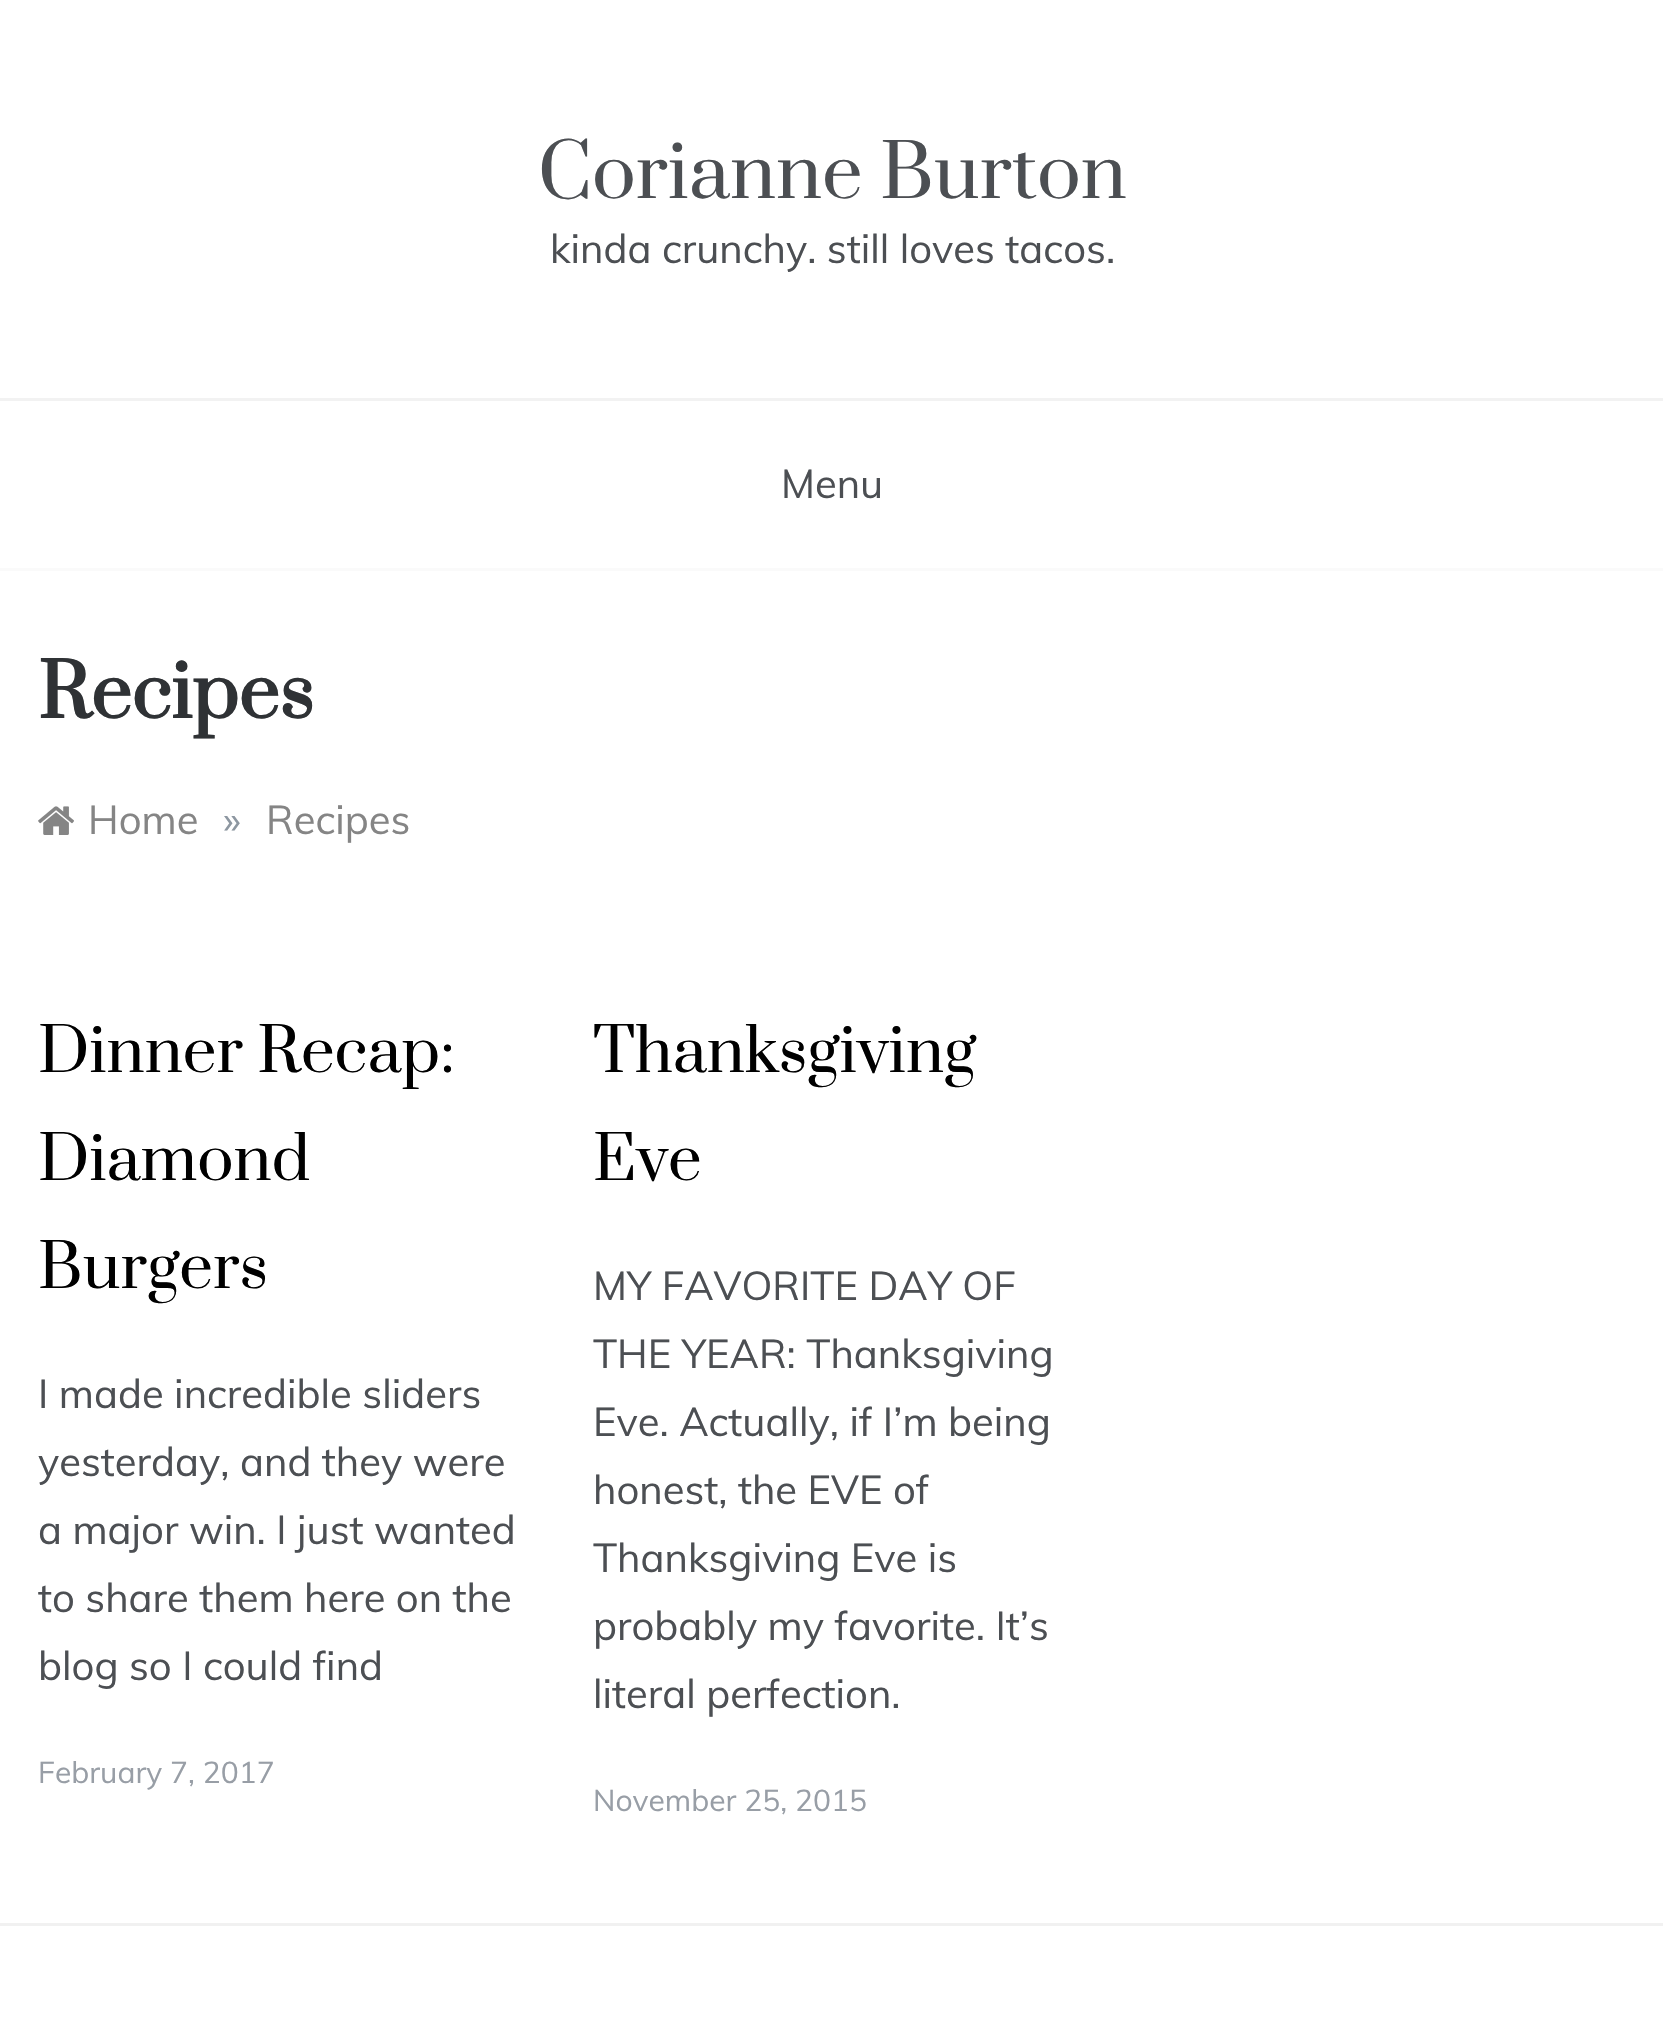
void draw(SkCanvas* c) {
SkPaint p;
p.setAntiAlias(true);
auto F=[&](const char* family, int weight, float size, bool italic = false){SkFontStyle style(weight, SkFontStyle::kNormal_Width,italic ? SkFontStyle::kItalic_Slant : SkFontStyle::kUpright_Slant);SkFont result(fontMgr->matchFamilyStyle(family, style), size);result.setSubpixel(true);return result;};
auto T=[&](const char* s, float x, float y, const SkFont& font){c->drawString(s, x, y, font, p);};
auto R=[&](float x, float y, float w, float h){c->drawRect(SkRect::MakeXYWH(x, y, w, h), p);};
auto I=[&](const char* path, float x, float y, float w, float h){auto image = SkImages::DeferredFromEncodedData(SkData::MakeFromFileName(path));c->drawImageRect(image, SkRect::MakeXYWH(x, y, w, h), SkSamplingOptions());};
c->clear(0xffffffff);
p.setColor(0xfffafafa);
R(0,568,1663,3);
p.setColor(0xfff2f2f2);
R(0,398,1663,3);
auto f1 = F("Prata",400,72.5);
p.setColor(0xff4c4f53);
T("Corianne Burton",538,198,f1);
auto f2 = F("Muli",400,40);
T("kinda crunchy. still loves tacos.",550,263,f2);
T("Menu",781,498,f2);
auto f3 = F("Prata",700,72.5);
p.setColor(0xff2f3235);
T("Recipes",38,718,f3);
I("1.png",38,806,36,29);
p.setColor(0xff858585);
T("Home",88,834,f2);
p.setColor(0xff8d97a1);
T("»",223,834,f2);
p.setColor(0xff858585);
T("Recipes",266,834,f2);
auto f4 = F("Prata",400,60);
p.setColor(0xff000000);
T("Dinner Recap:",38,1072,f4);
T("Diamond",38,1180,f4);
T("Burgers",38,1288,f4);
p.setColor(0xff4c4f53);
T("I made incredible sliders",38,1408,f2);
T("yesterday, and they were",38,1476,f2);
T("a major win. I just wanted",38,1544,f2);
c->save();
c->clipRect(SkRect::MakeXYWH(38,925,480,920));
T("to share them here on the",38,1612,f2);
c->restore();
T("blog so I could find",38,1680,f2);
auto f5 = F("Muli",400,30);
p.setColor(0xff989ea6);
T("February 7, 2017",38,1783,f5);
p.setColor(0xff000000);
T("Thanksgiving",593,1072,f4);
T("Eve",593,1180,f4);
p.setColor(0xff4c4f53);
T("MY FAVORITE DAY OF",593,1300,f2);
T("THE YEAR: Thanksgiving",593,1368,f2);
T("Eve. Actually, if I’m being",593,1436,f2);
T("honest, the EVE of",593,1504,f2);
T("Thanksgiving Eve is",593,1572,f2);
T("probably my favorite. It’s",593,1640,f2);
T("literal perfection.",593,1708,f2);
p.setColor(0xff989ea6);
T("November 25, 2015",593,1811,f5);
p.setColor(0xfff1f1f1);
R(0,1923,1663,3);
}
